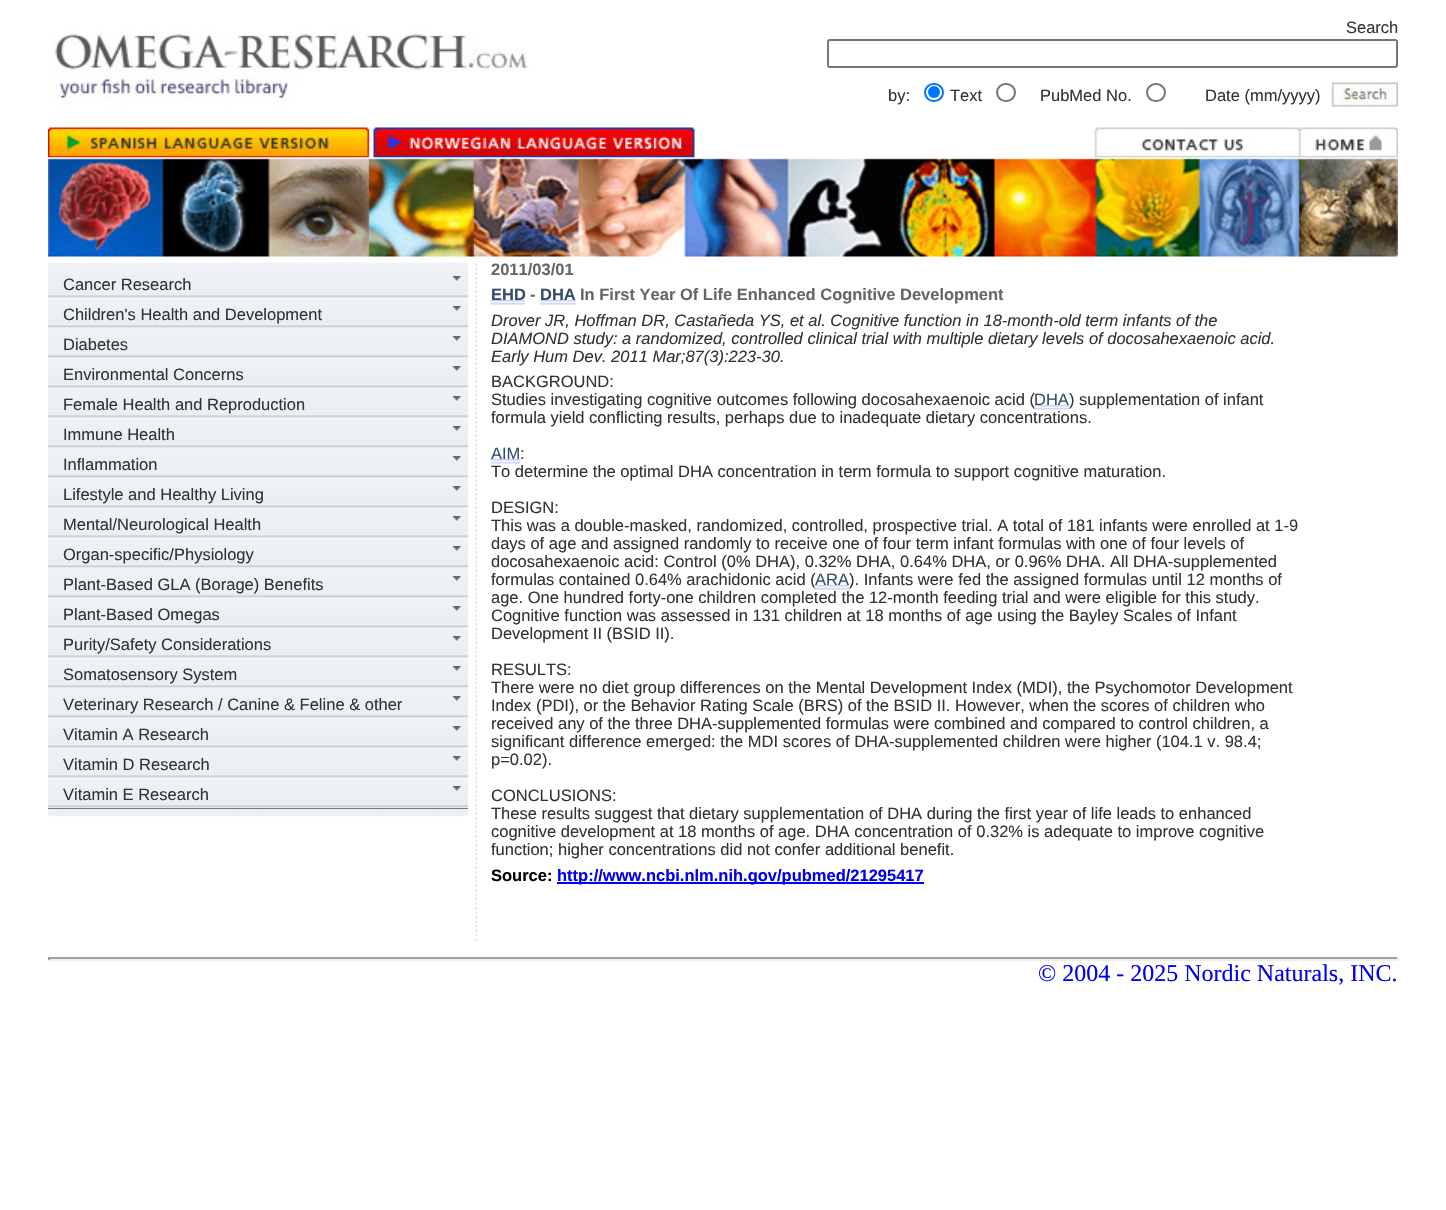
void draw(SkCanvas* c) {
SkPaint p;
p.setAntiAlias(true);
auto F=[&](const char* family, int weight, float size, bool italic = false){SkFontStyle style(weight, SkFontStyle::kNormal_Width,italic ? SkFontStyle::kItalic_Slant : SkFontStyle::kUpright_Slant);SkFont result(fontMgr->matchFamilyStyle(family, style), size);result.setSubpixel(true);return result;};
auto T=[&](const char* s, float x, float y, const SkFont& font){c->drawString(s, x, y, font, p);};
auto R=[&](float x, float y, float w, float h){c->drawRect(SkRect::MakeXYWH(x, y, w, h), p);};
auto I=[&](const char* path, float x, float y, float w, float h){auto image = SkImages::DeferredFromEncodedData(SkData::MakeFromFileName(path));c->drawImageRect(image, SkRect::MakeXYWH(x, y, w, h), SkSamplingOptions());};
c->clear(0xffffffff);
I("1.png",53,30,476,78);
auto f1 = F("Liberation Sans",400,16.5);
p.setColor(0xff333333);
T("Search",1346,33,f1);
p.setStroke(true);
p.setStrokeWidth(2);
p.setColor(0xff767676);
c->drawRoundRect(SkRect::MakeXYWH(828,40,569,27),2,2,p);
p.setStroke(false);
p.setColor(0xff333333);
T("by:",888,101,f1);
p.setStroke(true);
p.setColor(0xff0075ff);
c->drawRoundRect(SkRect::MakeXYWH(925,84,18,17),8.5,8.5,p);
p.setStroke(false);
c->drawCircle(934,92,6,p);
p.setColor(0xff333333);
T("Text",950,101,f1);
p.setStroke(true);
p.setColor(0xff767676);
c->drawRoundRect(SkRect::MakeXYWH(997,84,18,17),8.5,8.5,p);
p.setStroke(false);
p.setColor(0xff333333);
T("PubMed No.",1040,101,f1);
p.setStroke(true);
p.setColor(0xff767676);
c->drawRoundRect(SkRect::MakeXYWH(1147,84,18,17),8.5,8.5,p);
p.setStroke(false);
p.setColor(0xff333333);
T("Date (mm/yyyy)",1205,101,f1);
I("2.png",1331,82,67,26);
I("3.png",48,127,325,31);
I("4.png",373,127,324,31);
I("5.png",1091,127,307,31);
I("7.png",48,262,420,7);
I("16.png",475,262,3,679);
I("6.png",48,157,1350,106);
I("8.png",48,268,420,31);
T("Cancer Research",63,290,f1);
I("9.png",452,276,9,5);
I("10.png",48,298,420,31);
T("Children's Health and Development",63,320,f1);
I("9.png",452,306,9,5);
I("10.png",48,328,420,31);
T("Diabetes",63,350,f1);
I("9.png",452,336,9,5);
I("10.png",48,358,420,31);
T("Environmental Concerns",63,380,f1);
I("9.png",452,366,9,5);
I("11.png",48,388,420,31);
T("Female Health and Reproduction",63,410,f1);
I("9.png",452,396,9,5);
I("12.png",48,418,420,31);
T("Immune Health",63,440,f1);
I("9.png",452,426,9,5);
I("12.png",48,448,420,31);
T("Inflammation",63,470,f1);
I("9.png",452,456,9,5);
I("13.png",48,478,420,31);
T("Lifestyle and Healthy Living",63,500,f1);
I("9.png",452,486,9,5);
I("10.png",48,508,420,31);
T("Mental/Neurological Health",63,530,f1);
I("9.png",452,516,9,5);
I("10.png",48,538,420,31);
T("Organ-specific/Physiology",63,560,f1);
I("9.png",452,546,9,5);
I("10.png",48,568,420,31);
T("Plant-Based GLA (Borage) Benefits",63,590,f1);
I("9.png",452,576,9,5);
I("10.png",48,598,420,31);
T("Plant-Based Omegas",63,620,f1);
I("9.png",452,606,9,5);
I("13.png",48,628,420,31);
T("Purity/Safety Considerations",63,650,f1);
I("9.png",452,636,9,5);
I("10.png",48,658,420,31);
T("Somatosensory System",63,680,f1);
I("9.png",452,666,9,5);
I("10.png",48,688,420,31);
T("Veterinary Research / Canine & Feline & other",63,710,f1);
I("9.png",452,696,9,5);
I("11.png",48,718,420,31);
T("Vitamin A Research",63,740,f1);
I("9.png",452,726,9,5);
I("14.png",48,748,420,31);
T("Vitamin D Research",63,770,f1);
I("9.png",452,756,9,5);
p.setColor(0xff000000);
R(48,808,420,1);
I("10.png",48,778,420,31);
p.setColor(0xff333333);
T("Vitamin E Research",63,800,f1);
I("9.png",452,786,9,5);
I("15.png",48,809,420,8);
auto f2 = F("Liberation Sans",700,16.5);
p.setColor(0xff666666);
T("2011/03/01",491,275,f2);
p.setColor(0xff344e66);
T("EHD",491,300,f2);
p.setColor(0xff666666);
T("-",530,300,f2);
p.setColor(0xff344e66);
T("DHA",540,300,f2);
p.setColor(0xff666666);
T("In First Year Of Life Enhanced Cognitive Development",580,300,f2);
I("17.png",490,300,35,5);
I("18.png",540,300,36,5);
auto f3 = F("Liberation Sans",400,16.5,true);
p.setColor(0xff333333);
T("Drover JR, Hoffman DR, Castañeda YS, et al. Cognitive function in 18-month-old term infants of the",491,326,f3);
T("DIAMOND study: a randomized, controlled clinical trial with multiple dietary levels of docosahexaenoic acid.",491,344,f3);
T("Early Hum Dev. 2011 Mar;87(3):223-30.",491,362,f3);
T("BACKGROUND:",491,387,f1);
T("Studies investigating cognitive outcomes following docosahexaenoic acid (",491,405,f1);
p.setColor(0xff344e66);
T("DHA",1034,405,f1);
I("19.png",1035,405,35,5);
p.setColor(0xff333333);
T(") supplementation of infant",1069,405,f1);
T("formula yield conflicting results, perhaps due to inadequate dietary concentrations.",491,423,f1);
p.setColor(0xff344e66);
T("AIM",491,459,f1);
p.setColor(0xff333333);
T(":",520,459,f1);
I("20.png",490,459,31,5);
T("To determine the optimal DHA concentration in term formula to support cognitive maturation.",491,477,f1);
T("DESIGN:",491,513,f1);
T("This was a double-masked, randomized, controlled, prospective trial. A total of 181 infants were enrolled at 1-9",491,531,f1);
T("days of age and assigned randomly to receive one of four term infant formulas with one of four levels of",491,549,f1);
T("docosahexaenoic acid: Control (0% DHA), 0.32% DHA, 0.64% DHA, or 0.96% DHA. All DHA-supplemented",491,567,f1);
T("formulas contained 0.64% arachidonic acid (",491,585,f1);
p.setColor(0xff344e66);
T("ARA",815,585,f1);
p.setColor(0xff333333);
T("). Infants were fed the assigned formulas until 12 months of",849,585,f1);
I("21.png",814,585,35,5);
T("age. One hundred forty-one children completed the 12-month feeding trial and were eligible for this study.",491,603,f1);
T("Cognitive function was assessed in 131 children at 18 months of age using the Bayley Scales of Infant",491,621,f1);
T("Development II (BSID II).",491,639,f1);
T("RESULTS:",491,675,f1);
T("There were no diet group differences on the Mental Development Index (MDI), the Psychomotor Development",491,693,f1);
T("Index (PDI), or the Behavior Rating Scale (BRS) of the BSID II. However, when the scores of children who",491,711,f1);
T("received any of the three DHA-supplemented formulas were combined and compared to control children, a",491,729,f1);
T("significant difference emerged: the MDI scores of DHA-supplemented children were higher (104.1 v. 98.4;",491,747,f1);
T("p=0.02).",491,765,f1);
T("CONCLUSIONS:",491,801,f1);
T("These results suggest that dietary supplementation of DHA during the first year of life leads to enhanced",491,819,f1);
T("cognitive development at 18 months of age. DHA concentration of 0.32% is adequate to improve cognitive",491,837,f1);
T("function; higher concentrations did not confer additional benefit.",491,855,f1);
p.setColor(0xff000000);
T("Source:",491,881,f2);
p.setColor(0xff0000ee);
R(557,882,367,2);
T("http://www.ncbi.nlm.nih.gov/pubmed/21295417",557,881,f2);
p.setColor(0xff9f9f9f);
R(48,957,1350,2);
p.setColor(0xffeeeeee);
R(1397,957,2,3);
R(48,959,1350,2);
p.setColor(0xff9f9f9f);
R(48,957,2,3);
auto f4 = F("Liberation Serif",400,24);
p.setColor(0xff0000ee);
T("© 2004 - 2025 Nordic Naturals, INC.",1038,981,f4);
}
